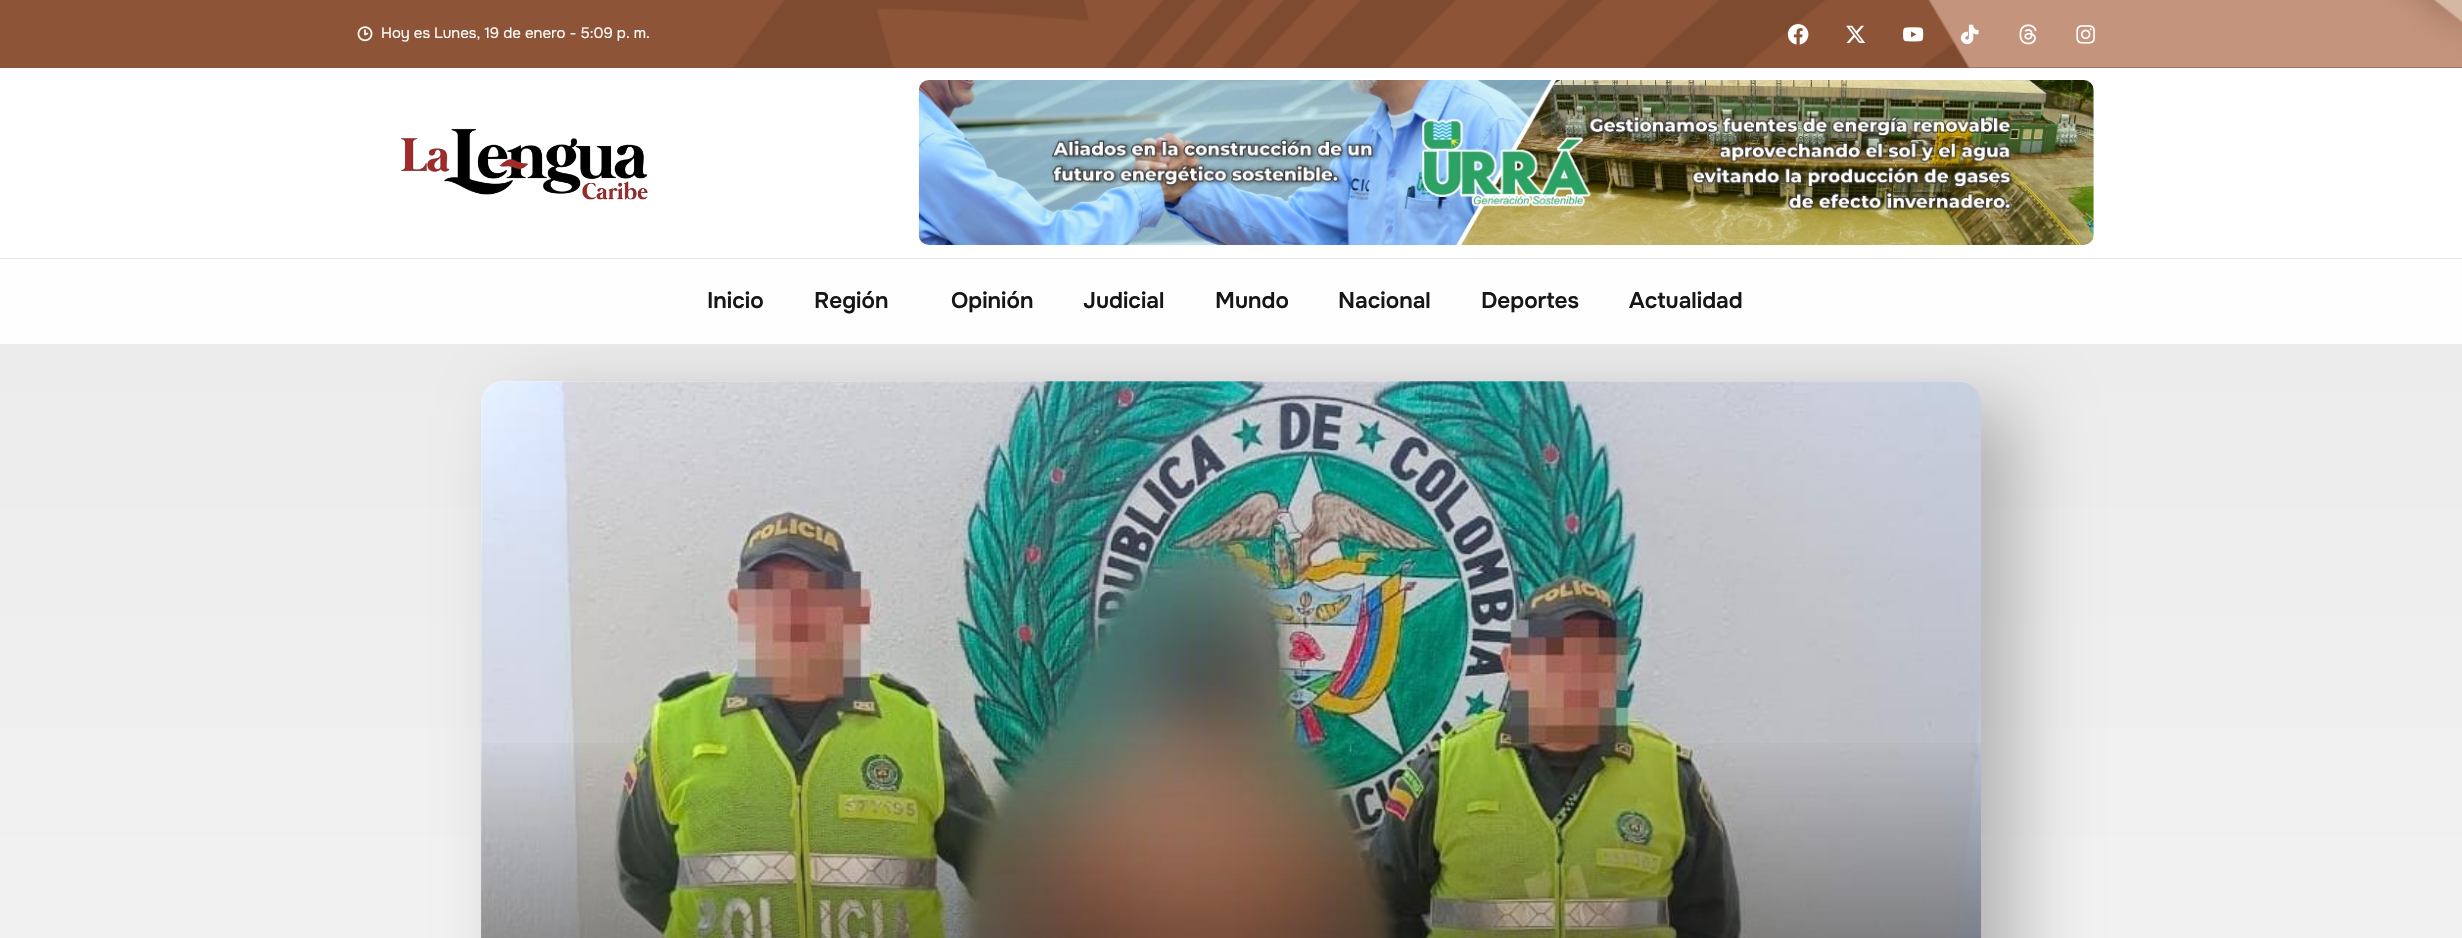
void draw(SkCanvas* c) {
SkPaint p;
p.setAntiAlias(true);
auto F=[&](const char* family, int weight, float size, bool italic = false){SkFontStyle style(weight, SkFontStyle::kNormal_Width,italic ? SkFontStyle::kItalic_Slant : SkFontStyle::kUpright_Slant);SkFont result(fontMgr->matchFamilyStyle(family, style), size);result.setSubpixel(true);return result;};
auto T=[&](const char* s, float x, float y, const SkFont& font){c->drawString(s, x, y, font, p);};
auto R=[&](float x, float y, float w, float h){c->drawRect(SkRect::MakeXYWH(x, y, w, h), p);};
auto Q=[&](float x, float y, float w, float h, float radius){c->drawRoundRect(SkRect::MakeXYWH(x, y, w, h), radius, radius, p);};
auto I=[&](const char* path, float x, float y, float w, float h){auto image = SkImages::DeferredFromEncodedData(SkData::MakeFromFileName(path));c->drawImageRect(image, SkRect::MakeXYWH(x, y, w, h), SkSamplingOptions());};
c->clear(0xfff4f4f4);
p.setColor(0xff8c493a);
R(0,67,2462,1);
I("1.png",0,0,2462,68);
I("2.png",357,26,16,16);
auto f1 = F("Onest",400,15);
p.setColor(0xffffffff);
T("Hoy es Lunes, 19 de enero - 5:09 p. m.",381,38,f1);
I("3.png",1788,24,21,21);
I("4.png",1846,25,20,18);
I("5.png",1903,27,21,15);
I("6.png",1960,24,19,21);
I("7.png",2019,24,18,21);
I("8.png",2076,25,19,19);
R(0,68,2462,190);
I("9.png",400,128,248,72);
I("10.png",918,80,1176,165);
{
const SkColor colors[] = {0xffececec,0xffffffff};
const float stops[] = {0,1};
const SkPoint ends[] = {{1231,344}, {1231,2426}};
p.setShader(SkGradientShader::MakeLinear(ends, colors, stops, 2, SkTileMode::kClamp));
p.setAlpha(255);
}
R(0,344,2462,594);
p.setShader(nullptr);
p.setColor(0x40000000);
p.setMaskFilter(SkMaskFilter::MakeBlur(kNormal_SkBlurStyle, 37));
c->drawRoundRect(SkRect::MakeXYWH(518,403,1500,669),23,23,p);
p.setMaskFilter(nullptr);
p.setColor(0xe6ffffff);
R(0,259,2462,85);
p.setColor(0xffe6e6e6);
R(0,258,2462,1);
auto f2 = F("Onest",600,22.5);
p.setColor(0xff161616);
T("Inicio",707,308,f2);
T("Región",814,308,f2);
T("Opinión",951,308,f2);
T("Judicial",1083,308,f2);
T("Mundo",1215,308,f2);
T("Nacional",1338,308,f2);
T("Deportes",1481,308,f2);
T("Actualidad",1629,308,f2);
p.setColor(0x1a000000);
p.setMaskFilter(SkMaskFilter::MakeBlur(kNormal_SkBlurStyle, .5));
c->drawRoundRect(SkRect::MakeXYWH(481,383,1500,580),23,23,p);
p.setMaskFilter(nullptr);
p.setColor(0xffffffff);
Q(481,381,1500,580,23);
I("11.png",481,381,1501,557);
{
const SkColor colors[] = {0x001d1d1d,0xed1d1d1d};
const float stops[] = {.35,.87};
const SkPoint ends[] = {{1231,381}, {1231,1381}};
p.setShader(SkGradientShader::MakeLinear(ends, colors, stops, 2, SkTileMode::kClamp));
p.setAlpha(255);
}
R(481,743,1500,195);
}
